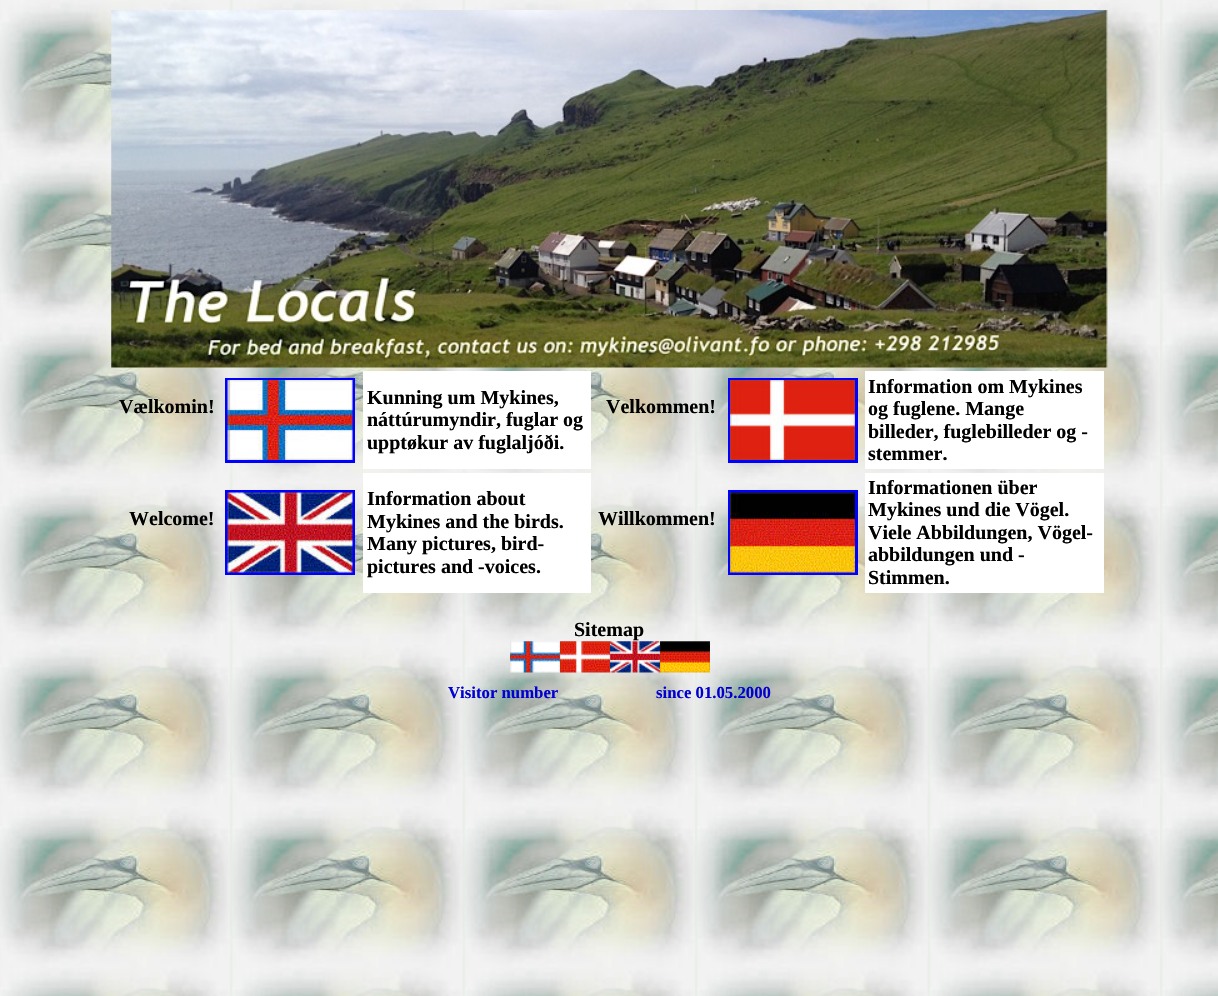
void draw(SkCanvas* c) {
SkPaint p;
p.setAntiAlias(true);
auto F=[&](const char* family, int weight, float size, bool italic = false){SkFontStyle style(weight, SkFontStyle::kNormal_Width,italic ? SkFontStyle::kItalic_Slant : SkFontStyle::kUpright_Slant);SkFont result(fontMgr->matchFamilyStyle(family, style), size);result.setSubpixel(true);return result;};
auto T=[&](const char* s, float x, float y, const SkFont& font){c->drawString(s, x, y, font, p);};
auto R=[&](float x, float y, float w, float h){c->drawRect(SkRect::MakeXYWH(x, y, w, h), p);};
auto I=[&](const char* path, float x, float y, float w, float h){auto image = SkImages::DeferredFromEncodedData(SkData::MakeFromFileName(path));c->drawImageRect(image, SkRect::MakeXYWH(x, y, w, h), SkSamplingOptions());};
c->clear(0xffffffff);
I("1.png",0,0,1218,996);
I("2.png",111,10,997,358);
auto f1 = F("Liberation Serif",700,20);
p.setColor(0xff000000);
T("Vælkomin!",119,413,f1);
p.setStroke(true);
p.setStrokeWidth(3);
p.setColor(0xff0000ff);
c->drawRect(SkRect::MakeXYWH(226.5,379.5,127,82),p);
I("3.png",227,380,126,80);
p.setStroke(false);
p.setColor(0xffffffff);
R(363,371,228,98);
p.setColor(0xff000000);
T("Kunning um Mykines,",367,404,f1);
T("náttúrumyndir, fuglar og",367,426,f1);
T("upptøkur av fuglaljóði.",367,449,f1);
T("Velkommen!",606,413,f1);
p.setStroke(true);
p.setColor(0xff0000ff);
c->drawRect(SkRect::MakeXYWH(729.5,379.5,127,82),p);
I("4.png",730,380,125,80);
p.setStroke(false);
p.setColor(0xffffffff);
R(865,371,239,98);
p.setColor(0xff000000);
T("Information om Mykines",868,393,f1);
T("og fuglene. Mange",868,415,f1);
T("billeder, fuglebilleder og -",868,438,f1);
T("stemmer.",868,460,f1);
T("Welcome!",129,525,f1);
p.setStroke(true);
p.setColor(0xff0000ff);
c->drawRect(SkRect::MakeXYWH(226.5,491.5,127,82),p);
I("5.png",227,492,126,81);
p.setStroke(false);
p.setColor(0xffffffff);
R(363,473,228,120);
p.setColor(0xff000000);
T("Information about",367,505,f1);
T("Mykines and the birds.",367,528,f1);
T("Many pictures, bird-",367,550,f1);
T("pictures and -voices.",367,573,f1);
T("Willkommen!",598,525,f1);
p.setStroke(true);
p.setColor(0xff0000ff);
c->drawRect(SkRect::MakeXYWH(729.5,491.5,127,82),p);
I("6.png",730,492,125,81);
p.setStroke(false);
p.setColor(0xffffffff);
R(865,473,239,120);
p.setColor(0xff000000);
T("Informationen über",868,494,f1);
T("Mykines und die Vögel.",868,516,f1);
T("Viele Abbildungen, Vögel-",868,539,f1);
T("abbildungen und -",868,561,f1);
T("Stimmen.",868,584,f1);
T("Sitemap",574,636,f1);
I("7.png",510,641,50,32);
I("8.png",560,641,50,32);
I("9.png",610,641,50,32);
I("10.png",660,641,50,32);
auto f2 = F("Liberation Serif",700,16.75);
p.setColor(0xff0000d0);
T("Visitor number",448,698,f2);
T("since 01.05.2000",656,698,f2);
}
